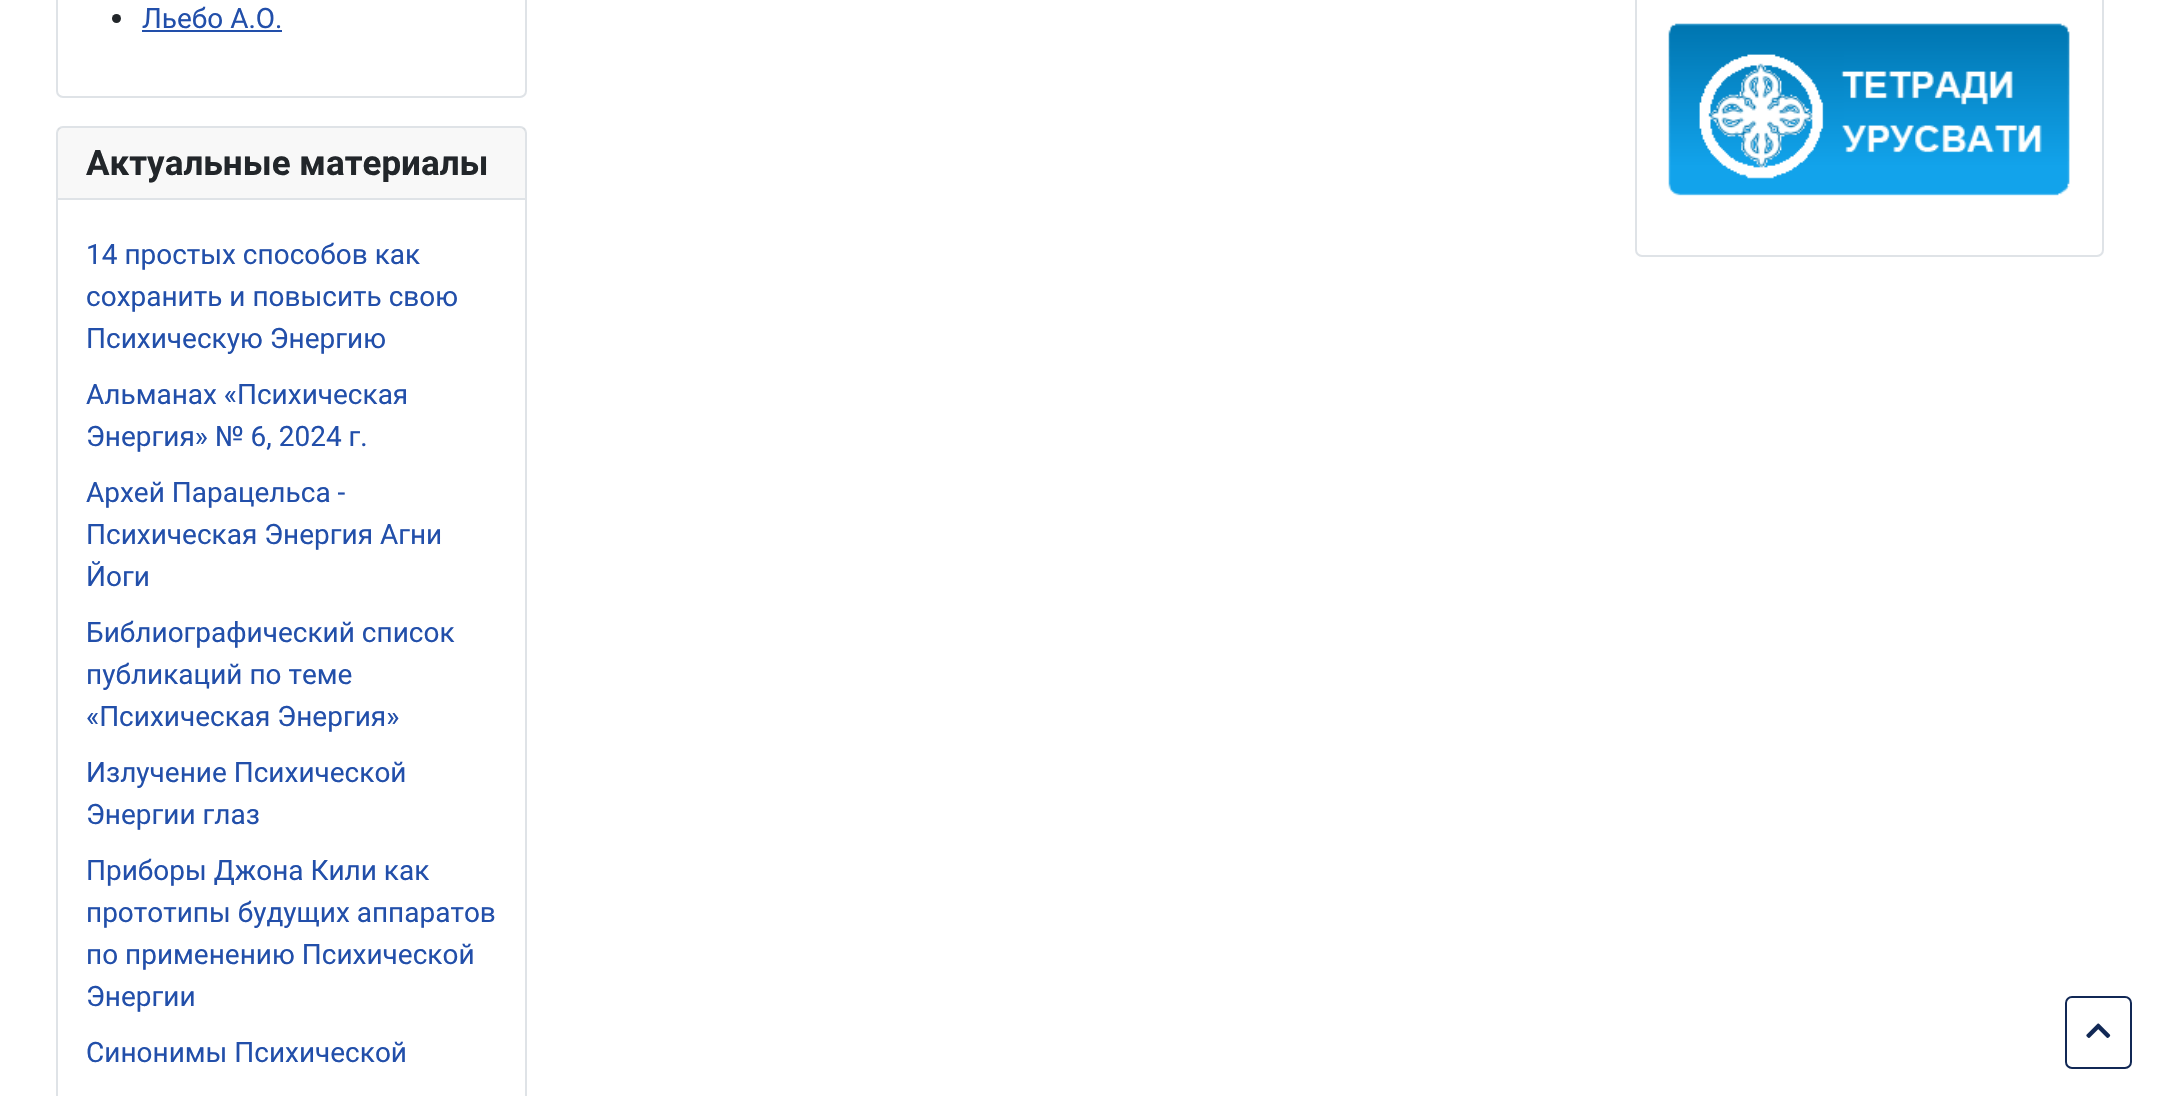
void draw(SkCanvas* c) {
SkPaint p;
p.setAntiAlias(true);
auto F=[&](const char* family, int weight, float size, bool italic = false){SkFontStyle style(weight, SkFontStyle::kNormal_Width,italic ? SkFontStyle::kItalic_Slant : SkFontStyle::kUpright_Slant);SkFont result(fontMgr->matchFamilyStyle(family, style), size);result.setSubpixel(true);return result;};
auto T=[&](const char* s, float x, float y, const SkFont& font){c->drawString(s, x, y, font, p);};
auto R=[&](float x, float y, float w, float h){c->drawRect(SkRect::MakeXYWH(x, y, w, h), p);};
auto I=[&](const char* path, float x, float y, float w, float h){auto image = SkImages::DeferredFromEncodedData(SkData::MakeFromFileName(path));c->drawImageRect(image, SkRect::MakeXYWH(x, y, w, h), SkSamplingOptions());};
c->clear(0xffffffff);
p.setStroke(true);
p.setStrokeWidth(2);
p.setColor(0xffdfe3e7);
c->drawRoundRect(SkRect::MakeXYWH(57,-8,469,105),6,6,p);
p.setStroke(false);
p.setColor(0xff22262a);
c->drawCircle(116.5,18.5,4.5,p);
auto f1 = F("Roboto",400,28);
p.setColor(0xff224faa);
T("Льебо А.О.",142,28,f1);
R(142,30,140,2);
p.setStroke(true);
p.setColor(0xffdfe3e7);
c->drawRoundRect(SkRect::MakeXYWH(57,127,469,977),6,6,p);
p.setStroke(false);
p.setColor(0x0822262a);
R(58,128,467,70);
p.setColor(0xffdfe3e7);
R(58,198,467,2);
auto f2 = F("Roboto",700,35);
p.setColor(0xff22262a);
T("Актуальные материалы",86,175,f2);
p.setColor(0xff224faa);
T("14 простых способов как",86,264,f1);
T("сохранить и повысить свою",86,306,f1);
T("Психическую Энергию",86,348,f1);
T("Альманах «Психическая",86,404,f1);
T("Энергия» № 6, 2024 г.",86,446,f1);
T("Архей Парацельса -",86,502,f1);
T("Психическая Энергия Агни",86,544,f1);
T("Йоги",86,586,f1);
T("Библиографический список",86,642,f1);
T("публикаций по теме",86,684,f1);
T("«Психическая Энергия»",86,726,f1);
T("Излучение Психической",86,782,f1);
T("Энергии глаз",86,824,f1);
T("Приборы Джона Кили как",86,880,f1);
T("прототипы будущих аппаратов",86,922,f1);
T("по применению Психической",86,964,f1);
T("Энергии",86,1006,f1);
T("Синонимы Психической",86,1062,f1);
p.setStroke(true);
p.setColor(0xffdfe3e7);
c->drawRoundRect(SkRect::MakeXYWH(1636,-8,467,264),6,6,p);
I("1.png",1668,23,402,173);
p.setColor(0xff112855);
c->drawRoundRect(SkRect::MakeXYWH(2066,997,65,71),6,6,p);
I("2.png",2086,1023,25,15);
}
